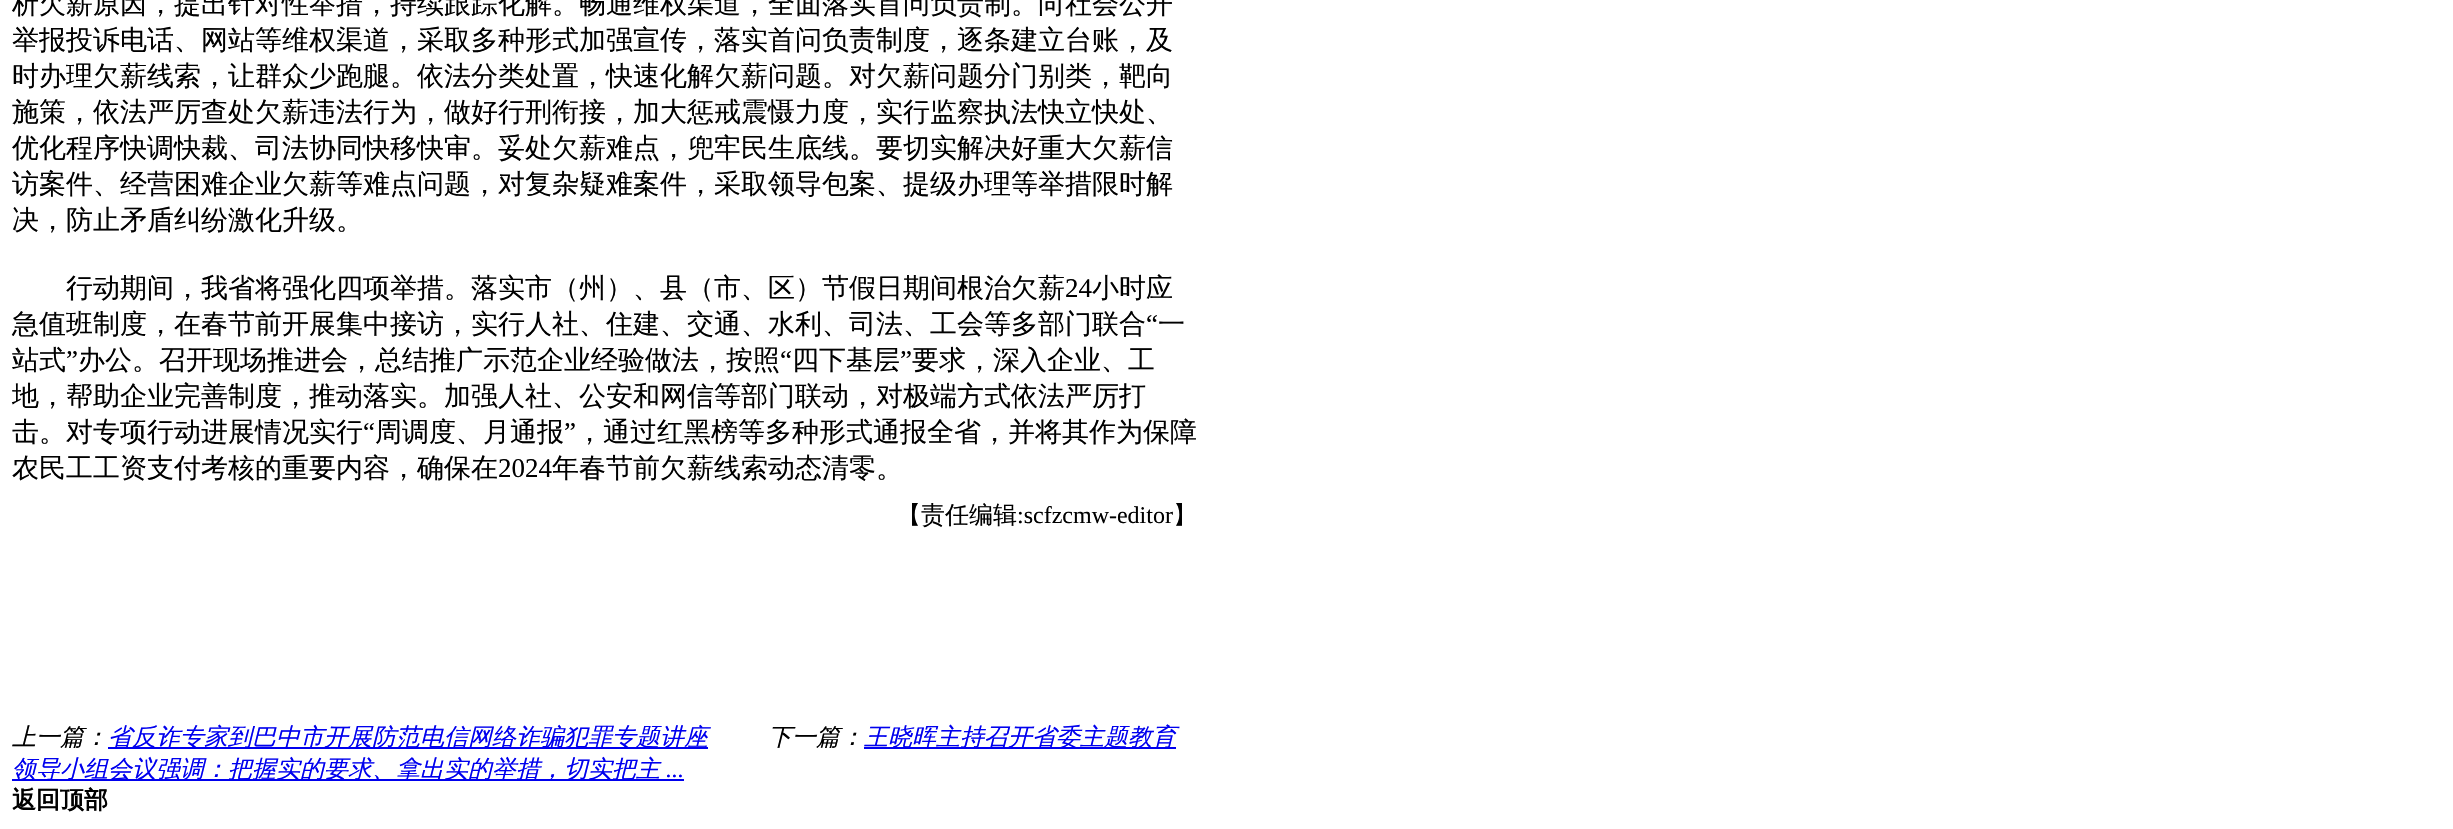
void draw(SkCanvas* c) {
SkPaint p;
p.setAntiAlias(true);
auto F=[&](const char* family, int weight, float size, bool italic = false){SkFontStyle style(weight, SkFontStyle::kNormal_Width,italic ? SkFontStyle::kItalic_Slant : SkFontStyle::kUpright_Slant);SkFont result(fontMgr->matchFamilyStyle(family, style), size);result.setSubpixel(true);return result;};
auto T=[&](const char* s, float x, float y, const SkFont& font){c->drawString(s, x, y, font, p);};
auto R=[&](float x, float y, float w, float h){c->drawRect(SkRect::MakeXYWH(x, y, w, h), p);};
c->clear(0xffffffff);
auto f1 = F("WenQuanYi Zen Hei",500,27);
p.setColor(0xff000000);
T("析欠薪原因，提出针对性举措，持续跟踪化解。畅通维权渠道，全面落实首问负责制。向社会公开",12,13,f1);
T("举报投诉电话、网站等维权渠道，采取多种形式加强宣传，落实首问负责制度，逐条建立台账，及",12,49,f1);
T("时办理欠薪线索，让群众少跑腿。依法分类处置，快速化解欠薪问题。对欠薪问题分门别类，靶向",12,85,f1);
T("施策，依法严厉查处欠薪违法行为，做好行刑衔接，加大惩戒震慑力度，实行监察执法快立快处、",12,121,f1);
T("优化程序快调快裁、司法协同快移快审。妥处欠薪难点，兜牢民生底线。要切实解决好重大欠薪信",12,157,f1);
T("访案件、经营困难企业欠薪等难点问题，对复杂疑难案件，采取领导包案、提级办理等举措限时解",12,193,f1);
T("决，防止矛盾纠纷激化升级。",12,229,f1);
T("行动期间，我省将强化四项举措。落实市（州）、县（市、区）节假日期间根治欠薪",66,297,f1);
auto f2 = F("Liberation Serif",400,27);
T("24",1065,297,f2);
T("小时应",1092,297,f1);
T("急值班制度，在春节前开展集中接访，实行人社、住建、交通、水利、司法、工会等多部门联合",12,333,f1);
T("“",1146,333,f2);
T("一",1158,333,f1);
T("站式",12,369,f1);
T("”",66,369,f2);
T("办公。召开现场推进会，总结推广示范企业经验做法，按照",78,369,f1);
T("“",780,369,f2);
T("四下基层",792,369,f1);
T("”",900,369,f2);
T("要求，深入企业、工",912,369,f1);
T("地，帮助企业完善制度，推动落实。加强人社、公安和网信等部门联动，对极端方式依法严厉打",12,405,f1);
T("击。对专项行动进展情况实行",12,441,f1);
T("“",363,441,f2);
T("周调度、月通报",375,441,f1);
T("”",564,441,f2);
T("，通过红黑榜等多种形式通报全省，并将其作为保障",576,441,f1);
T("农民工工资支付考核的重要内容，确保在",12,477,f1);
T("2024",498,477,f2);
T("年春节前欠薪线索动态清零。",552,477,f1);
auto f3 = F("WenQuanYi Zen Hei",500,24);
T("【责任编辑",897,523,f3);
auto f4 = F("Liberation Serif",400,24);
T(":scfzcmw-editor",1017,523,f4);
T("】",1173,523,f3);
auto f5 = F("WenQuanYi Zen Hei",500,24,true);
T("上一篇：",12,745,f5);
p.setColor(0xff0000ee);
R(108,747,600,2);
T("省反诈专家到巴中市开展防范电信网络诈骗犯罪专题讲座",108,745,f5);
p.setColor(0xff000000);
T("下一篇：",768,745,f5);
p.setColor(0xff0000ee);
R(864,747,312,2);
T("王晓晖主持召开省委主题教育",864,745,f5);
R(12,779,672,2);
T("领导小组会议强调：把握实的要求、拿出实的举措，切实把主",12,777,f5);
auto f6 = F("Liberation Serif",400,24,true);
T("...",666,777,f6);
auto f7 = F("WenQuanYi Zen Hei",700,24);
p.setColor(0xff000000);
T("返回顶部",12,808,f7);
}
